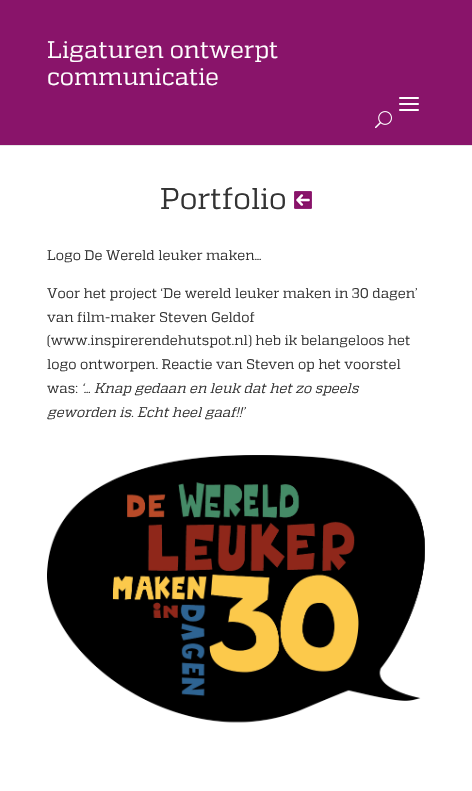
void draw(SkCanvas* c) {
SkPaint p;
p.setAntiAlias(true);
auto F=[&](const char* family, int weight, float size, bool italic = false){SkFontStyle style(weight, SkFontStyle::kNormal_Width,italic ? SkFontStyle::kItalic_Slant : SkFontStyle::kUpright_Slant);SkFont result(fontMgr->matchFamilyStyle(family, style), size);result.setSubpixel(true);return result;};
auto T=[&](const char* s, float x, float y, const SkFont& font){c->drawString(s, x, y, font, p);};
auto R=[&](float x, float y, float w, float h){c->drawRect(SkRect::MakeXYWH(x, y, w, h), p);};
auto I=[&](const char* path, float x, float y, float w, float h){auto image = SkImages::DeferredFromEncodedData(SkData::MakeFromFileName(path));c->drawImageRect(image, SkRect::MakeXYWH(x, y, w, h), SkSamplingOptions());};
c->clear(0xffffffff);
p.setColor(0xffe6e6e6);
R(0,145,472,1);
p.setColor(0xff89146a);
R(0,0,472,145);
auto f1 = F("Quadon",400,24);
p.setColor(0xffffffff);
T("Ligaturen ontwerpt",47,58,f1);
T("communicatie",47,85,f1);
I("1.png",399,97,20,14);
I("2.png",375,111,17,18);
auto f2 = F("Quadon",400,30);
p.setColor(0xff333333);
T("Portfolio",160,209,f2);
I("3.png",294,191,18,18);
auto f3 = F("Quadon",400,14);
T("Logo De Wereld leuker maken…",47,260,f3);
T("Voor het project ‘De wereld leuker maken in 30 dagen’",47,298,f3);
T("van film-maker Steven Geldof",47,322,f3);
T("(www.inspirerendehutspot.nl) heb ik belangeloos het",47,345,f3);
T("logo ontworpen. Reactie van Steven op het voorstel",47,369,f3);
T("was:",47,393,f3);
auto f4 = F("Quadon",400,14,true);
T("‘… Knap gedaan en leuk dat het zo speels",81,393,f4);
T("geworden is. Echt heel gaaf!!’",47,417,f4);
I("4.png",47,455,378,268);
}
